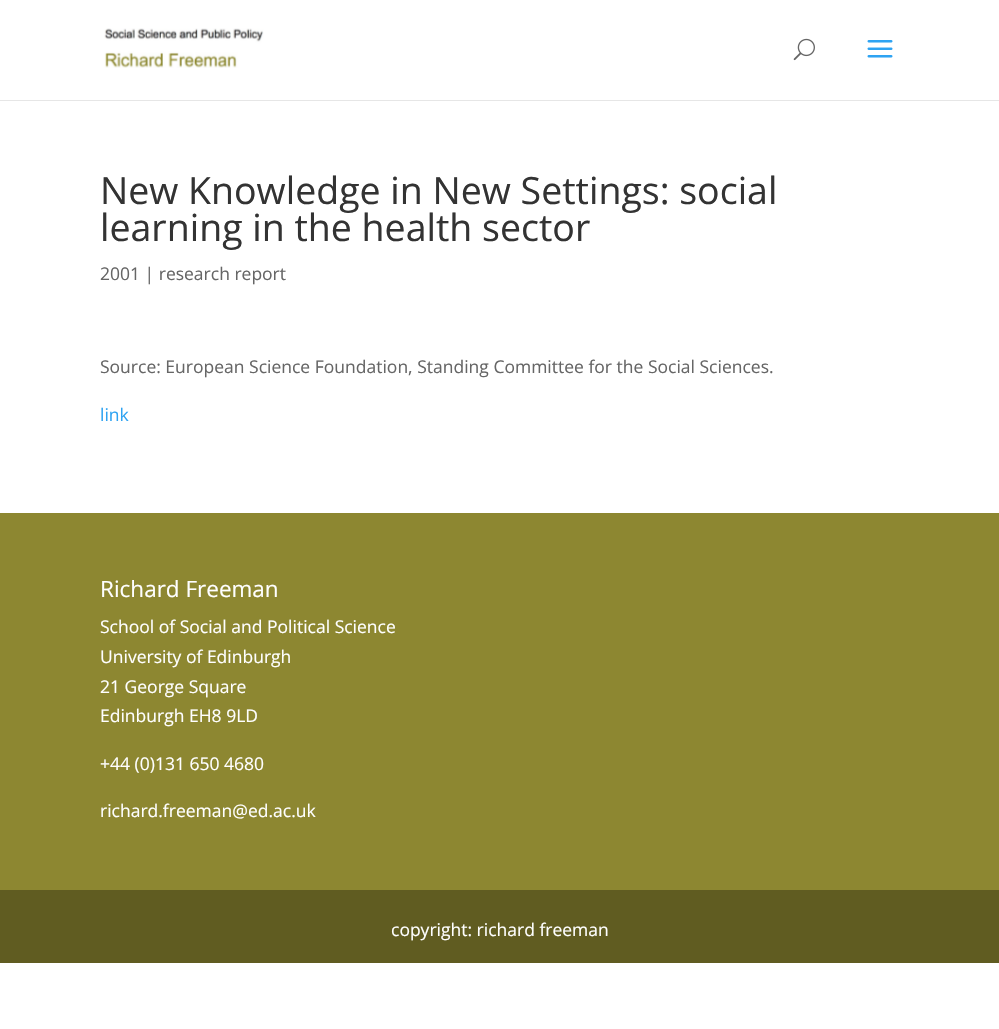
void draw(SkCanvas* c) {
SkPaint p;
p.setAntiAlias(true);
auto F=[&](const char* family, int weight, float size, bool italic = false){SkFontStyle style(weight, SkFontStyle::kNormal_Width,italic ? SkFontStyle::kItalic_Slant : SkFontStyle::kUpright_Slant);SkFont result(fontMgr->matchFamilyStyle(family, style), size);result.setSubpixel(true);return result;};
auto T=[&](const char* s, float x, float y, const SkFont& font){c->drawString(s, x, y, font, p);};
auto R=[&](float x, float y, float w, float h){c->drawRect(SkRect::MakeXYWH(x, y, w, h), p);};
auto I=[&](const char* path, float x, float y, float w, float h){auto image = SkImages::DeferredFromEncodedData(SkData::MakeFromFileName(path));c->drawImageRect(image, SkRect::MakeXYWH(x, y, w, h), SkSamplingOptions());};
c->clear(0xffffffff);
p.setColor(0xffe6e6e6);
R(0,100,999,1);
I("1.png",104,28,160,40);
I("2.png",793,38,22,23);
I("3.png",867,40,26,18);
auto f1 = F("Open Sans",400,37.5);
p.setColor(0xff333333);
T("New Knowledge in New Settings: social",100,204,f1);
T("learning in the health sector",100,241,f1);
auto f2 = F("Open Sans",400,17.5);
p.setColor(0xff666666);
T("2001 | research report",100,280,f2);
T("Source: European Science Foundation, Standing Committee for the Social Sciences.",100,373,f2);
p.setColor(0xff2ea3f2);
T("link",100,421,f2);
p.setColor(0xff8d8731);
R(0,513,999,377);
auto f3 = F("Open Sans",400,22.5);
p.setColor(0xffffffff);
T("Richard Freeman",100,597,f3);
T("School of Social and Political Science",100,633,f2);
T("University of Edinburgh",100,663,f2);
T("21 George Square",100,693,f2);
T("Edinburgh EH8 9LD",100,722,f2);
T("+44 (0)131 650 4680",100,770,f2);
T("richard.freeman@ed.ac.uk",100,817,f2);
p.setColor(0xff605c21);
R(0,890,999,73);
p.setColor(0xffffffff);
T("copyright: richard freeman",391,936,f2);
}
